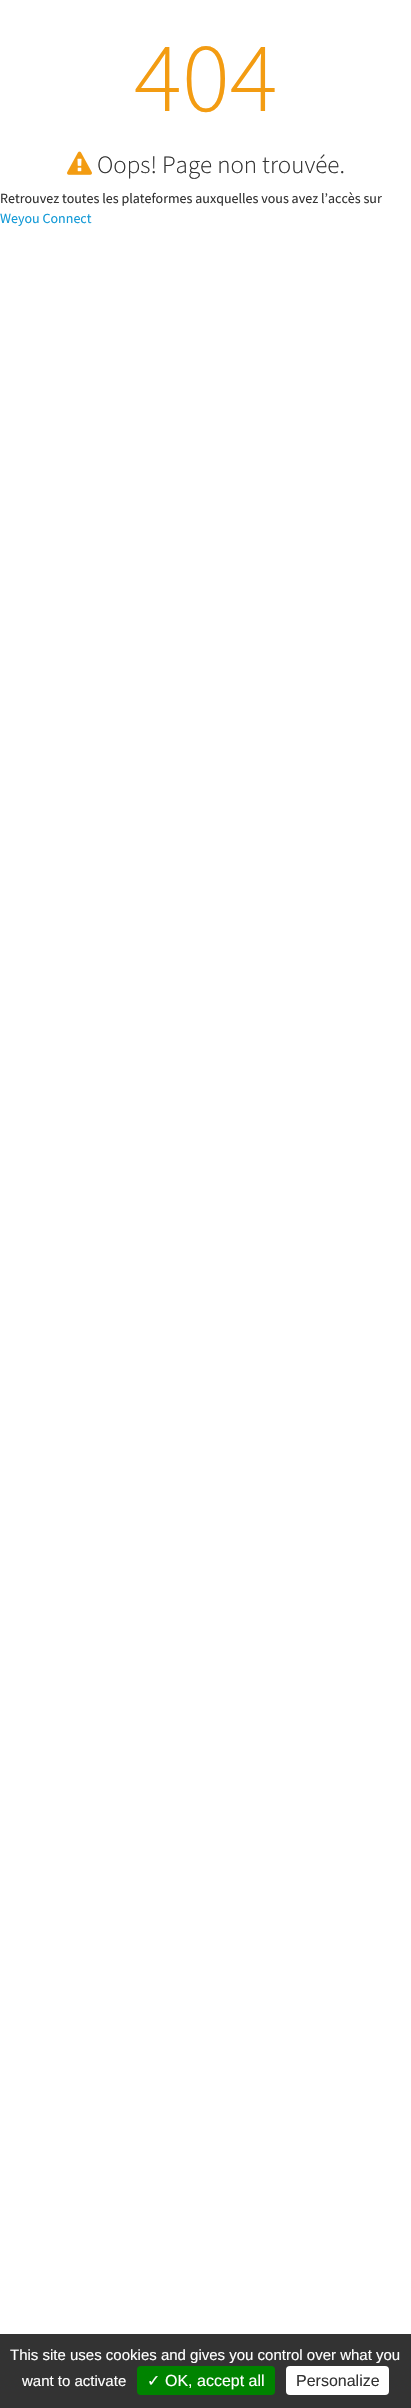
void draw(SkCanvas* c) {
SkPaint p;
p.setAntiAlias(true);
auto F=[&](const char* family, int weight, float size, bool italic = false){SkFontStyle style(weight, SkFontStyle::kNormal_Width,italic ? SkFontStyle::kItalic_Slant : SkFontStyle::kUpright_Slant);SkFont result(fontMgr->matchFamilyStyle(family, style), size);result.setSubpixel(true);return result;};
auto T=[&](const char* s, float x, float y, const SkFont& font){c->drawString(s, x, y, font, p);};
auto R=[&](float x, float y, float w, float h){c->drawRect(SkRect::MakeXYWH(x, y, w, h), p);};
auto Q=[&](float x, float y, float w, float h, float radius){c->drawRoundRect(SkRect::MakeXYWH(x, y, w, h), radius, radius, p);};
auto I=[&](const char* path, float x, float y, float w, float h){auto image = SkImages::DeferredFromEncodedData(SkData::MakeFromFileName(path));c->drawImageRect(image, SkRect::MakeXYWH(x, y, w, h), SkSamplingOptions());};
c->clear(0xffffffff);
auto f1 = F("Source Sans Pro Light",300,100);
p.setColor(0xfff39c12);
T("404",134,111,f1);
I("1.png",67,151,25,24);
auto f2 = F("Source Sans Pro Light",300,25);
p.setColor(0xff333333);
T("Oops! Page non trouvée.",97,173,f2);
auto f3 = F("Source Sans Pro",400,14);
T("Retrouvez toutes les plateformes auxquelles vous avez l’accès sur",0,203,f3);
p.setColor(0xff139ad7);
T("Weyou Connect",0,223,f3);
p.setColor(0xff333333);
R(0,2334,411,74);
auto f4 = F("Liberation Sans",400,15);
p.setColor(0xffffffff);
T("This site uses cookies and gives you control over what you",10,2360,f4);
T("want to activate",22,2386,f4);
p.setColor(0xff008300);
Q(137,2366,138,29,4);
auto f5 = F("DejaVu Sans",400,16);
p.setColor(0xffffffff);
T("✓",147,2386,f5);
auto f6 = F("Liberation Sans",400,16);
T("OK, accept all",165,2386,f6);
Q(286,2366,103,29,4);
p.setColor(0xff333333);
T("Personalize",296,2386,f6);
}
